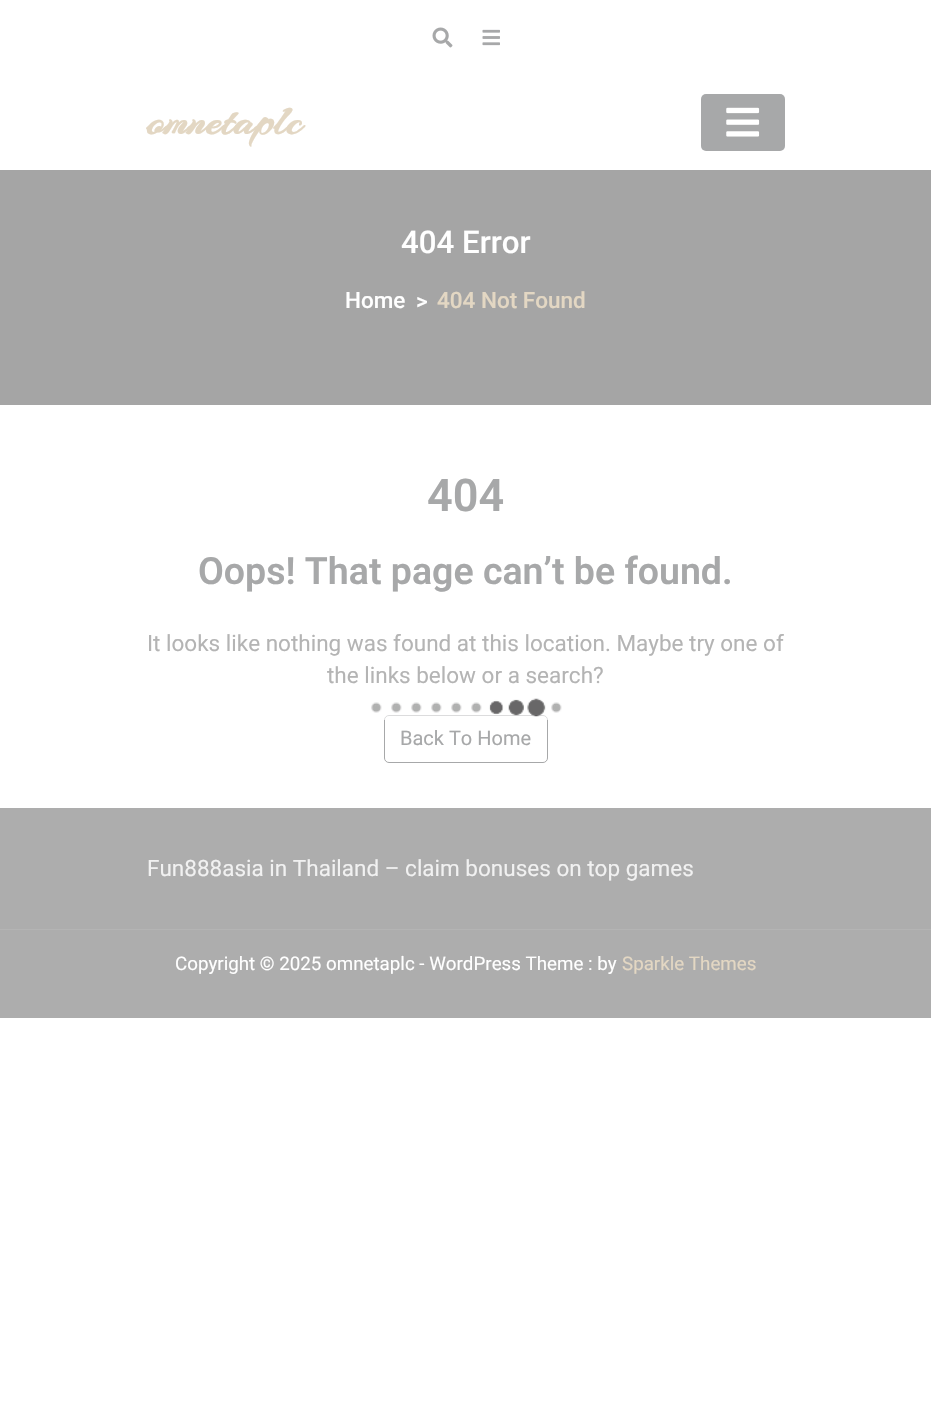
void draw(SkCanvas* c) {
SkPaint p;
p.setAntiAlias(true);
auto F=[&](const char* family, int weight, float size, bool italic = false){SkFontStyle style(weight, SkFontStyle::kNormal_Width,italic ? SkFontStyle::kItalic_Slant : SkFontStyle::kUpright_Slant);SkFont result(fontMgr->matchFamilyStyle(family, style), size);result.setSubpixel(true);return result;};
auto T=[&](const char* s, float x, float y, const SkFont& font){c->drawString(s, x, y, font, p);};
auto R=[&](float x, float y, float w, float h){c->drawRect(SkRect::MakeXYWH(x, y, w, h), p);};
auto Q=[&](float x, float y, float w, float h, float radius){c->drawRoundRect(SkRect::MakeXYWH(x, y, w, h), radius, radius, p);};
auto I=[&](const char* path, float x, float y, float w, float h){auto image = SkImages::DeferredFromEncodedData(SkData::MakeFromFileName(path));c->drawImageRect(image, SkRect::MakeXYWH(x, y, w, h), SkSamplingOptions());};
c->clear(0xffffffff);
I("1.png",432,27,21,21);
I("2.png",482,29,18,17);
auto f1 = F("Arizonia",700,45);
p.setColor(0xffe3d7c3);
T("omnetaplc",147,134,f1);
p.setColor(0xffa7a8a9);
Q(701,94,84,57,5);
I("3.png",726,107,34,30);
p.setColor(0xffa5a5a5);
R(0,170,931,235);
auto f2 = F("Roboto",500,31.25);
p.setColor(0xffffffff);
T("404 Error",401,253,f2);
auto f3 = F("Roboto",500,22.5);
T("Home",345,308,f3);
T(">",416,309,f3);
p.setColor(0xffe3d7c3);
T("404 Not Found",437,308,f3);
auto f4 = F("Roboto",600,45);
p.setColor(0xffa7a8a9);
T("404",427,511,f4);
auto f5 = F("Roboto",600,37.5);
T("Oops! That page can’t be found.",198,584,f5);
auto f6 = F("Roboto",400,22.5);
p.setColor(0xffb4b4b4);
T("It looks like nothing was found at this location. Maybe try one of",147,651,f6);
T("the links below or a search?",327,683,f6);
p.setStroke(true);
p.setStrokeWidth(1);
p.setColor(0xffa7a8a9);
c->drawRoundRect(SkRect::MakeXYWH(384.5,715.5,163,47),4.5,4.5,p);
auto f7 = F("Roboto",400,20);
p.setStroke(false);
T("Back To Home",400,745,f7);
p.setColor(0xffadadad);
R(0,808,931,121);
p.setColor(0xffb4b4b4);
R(0,929,931,1);
p.setColor(0xfff1f1f1);
T("Fun888asia in Thailand – claim bonuses on top games",147,876,f6);
p.setColor(0xffadadad);
R(0,930,931,88);
auto f8 = F("Roboto",400,18.75);
p.setColor(0xffffffff);
T("Copyright © 2025 omnetaplc - WordPress Theme : by",175,970,f8);
p.setColor(0xffe3d7c3);
T("Sparkle Themes",622,970,f8);
I("4.png",371,698,191,22);
}
